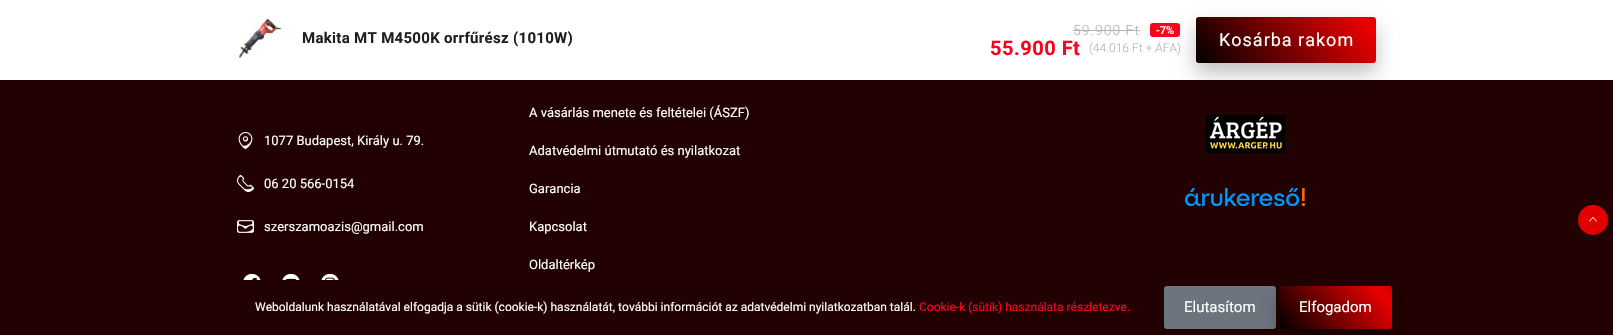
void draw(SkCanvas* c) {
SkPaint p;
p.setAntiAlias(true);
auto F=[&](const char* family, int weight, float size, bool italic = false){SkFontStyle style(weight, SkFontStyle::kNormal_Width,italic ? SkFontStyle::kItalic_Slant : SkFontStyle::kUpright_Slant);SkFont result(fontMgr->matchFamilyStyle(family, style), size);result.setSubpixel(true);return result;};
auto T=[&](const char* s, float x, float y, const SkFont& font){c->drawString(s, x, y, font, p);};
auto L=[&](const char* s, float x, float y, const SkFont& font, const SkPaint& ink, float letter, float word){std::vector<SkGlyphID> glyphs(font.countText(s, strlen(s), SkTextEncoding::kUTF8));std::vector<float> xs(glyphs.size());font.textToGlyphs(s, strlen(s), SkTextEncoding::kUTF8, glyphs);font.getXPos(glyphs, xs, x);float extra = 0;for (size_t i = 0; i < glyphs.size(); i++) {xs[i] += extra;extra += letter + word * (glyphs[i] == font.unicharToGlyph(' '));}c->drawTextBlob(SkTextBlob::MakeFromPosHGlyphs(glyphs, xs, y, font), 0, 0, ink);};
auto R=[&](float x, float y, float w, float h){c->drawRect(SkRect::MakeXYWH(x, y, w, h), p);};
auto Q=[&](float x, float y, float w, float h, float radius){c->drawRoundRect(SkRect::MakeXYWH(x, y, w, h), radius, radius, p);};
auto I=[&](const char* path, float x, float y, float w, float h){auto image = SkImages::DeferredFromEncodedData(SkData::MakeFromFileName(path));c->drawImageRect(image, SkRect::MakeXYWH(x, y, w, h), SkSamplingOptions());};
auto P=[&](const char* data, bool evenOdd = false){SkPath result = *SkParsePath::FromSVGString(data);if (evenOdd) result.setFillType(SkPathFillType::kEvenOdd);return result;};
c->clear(0xff210101);
p.setColor(0xffffffff);
R(0,0,1613,80);
I("1.png",239,18,43,41);
auto f1 = F("Roboto",700,15);
p.setColor(0xff211f1d);
L("Makita MT M4500K orrfűrész (1010W)",302,43,f1,p,.3,0);
auto f2 = F("Roboto",300,14);
p.setColor(0xffb3b3b3);
L("59.900 Ft",1073,35,f2,p,1,0);
R(1073,30,67,1);
p.setColor(0xffff001e);
Q(1150,23,30,14,3);
auto f3 = F("Roboto",500,11);
p.setColor(0xffffffff);
T("-7%",1156,34,f3);
auto f4 = F("Roboto",700,20);
p.setColor(0xffff001e);
L("55.900 Ft",990,55,f4,p,.5,0);
auto f5 = F("Roboto",300,12);
p.setColor(0xffb3b3b3);
T("(44.016 Ft + ÁFA)",1089,52,f5);
p.setColor(0x40000000);
p.setMaskFilter(SkMaskFilter::MakeBlur(kNormal_SkBlurStyle, 10));
c->drawRoundRect(SkRect::MakeXYWH(1196,27,180,46),3,3,p);
p.setMaskFilter(nullptr);
{
const SkColor colors[] = {0xff000000,0xffeb0000,0xff000000};
const float stops[] = {0,.51,1};
const SkPoint ends[] = {{1259,138}, {1493,-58}};
p.setShader(SkGradientShader::MakeLinear(ends, colors, stops, 3, SkTileMode::kClamp));
p.setAlpha(255);
}
Q(1196,17,180,46,3);
auto f6 = F("Roboto",400,18);
p.setShader(nullptr);
p.setColor(0xffffffff);
L("Kosárba rakom",1219,46,f6,p,1,0);
I("2.png",238,132,15,17);
auto f7 = F("Roboto",400,13);
T("1077 Budapest, Király u. 79.",264,145,f7);
I("3.png",237,175,17,17);
T("06 20 566-0154",264,188,f7);
I("4.png",237,220,17,13);
T("szerszamoazis@gmail.com",264,231,f7);
I("5.png",243,274,18,6);
I("6.png",282,274,18,6);
I("7.png",321,274,18,6);
T("A vásárlás menete és feltételei (ÁSZF)",529,117,f7);
T("Adatvédelmi útmutató és nyilatkozat",529,155,f7);
T("Garancia",529,193,f7);
T("Kapcsolat",529,231,f7);
T("Oldaltérkép",529,269,f7);
I("8.png",1206,114,80,39);
I("9.png",1185,188,120,18);
p.setColor(0xffe00000);
c->drawCircle(1593,220,15,p);
p.setColor(0xffffffff);
c->drawPath(P("M1589.5 221.5l-.5-.5l4-4l.5 .5z"),p);
c->drawPath(P("M1596.5 221.5l-4-4l.5-.5l4 4z"),p);
auto f8 = F("Roboto",400,12);
T("Weboldalunk használatával elfogadja a sütik (cookie-k) használatát, további információt az adatvédelmi nyilatkozatban talál.",255,311,f8);
p.setColor(0xffff001e);
T("Cookie-k (sütik) használata részletezve.",919,311,f8);
p.setColor(0xff6c757d);
Q(1164,286,112,43,3);
auto f9 = F("Roboto",400,15);
p.setColor(0xffffffff);
T("Elutasítom",1184,312,f9);
p.setColor(0x40000000);
p.setMaskFilter(SkMaskFilter::MakeBlur(kNormal_SkBlurStyle, 10));
c->drawRoundRect(SkRect::MakeXYWH(1279,296,113,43),3,3,p);
p.setMaskFilter(nullptr);
{
const SkColor colors[] = {0xff000000,0xffeb0000,0xff000000};
const float stops[] = {0,.51,1};
const SkPoint ends[] = {{1315,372}, {1469,243}};
p.setShader(SkGradientShader::MakeLinear(ends, colors, stops, 3, SkTileMode::kClamp));
p.setAlpha(255);
}
Q(1279,286,113,43,3);
p.setShader(nullptr);
p.setColor(0xffffffff);
T("Elfogadom",1299,312,f9);
}
